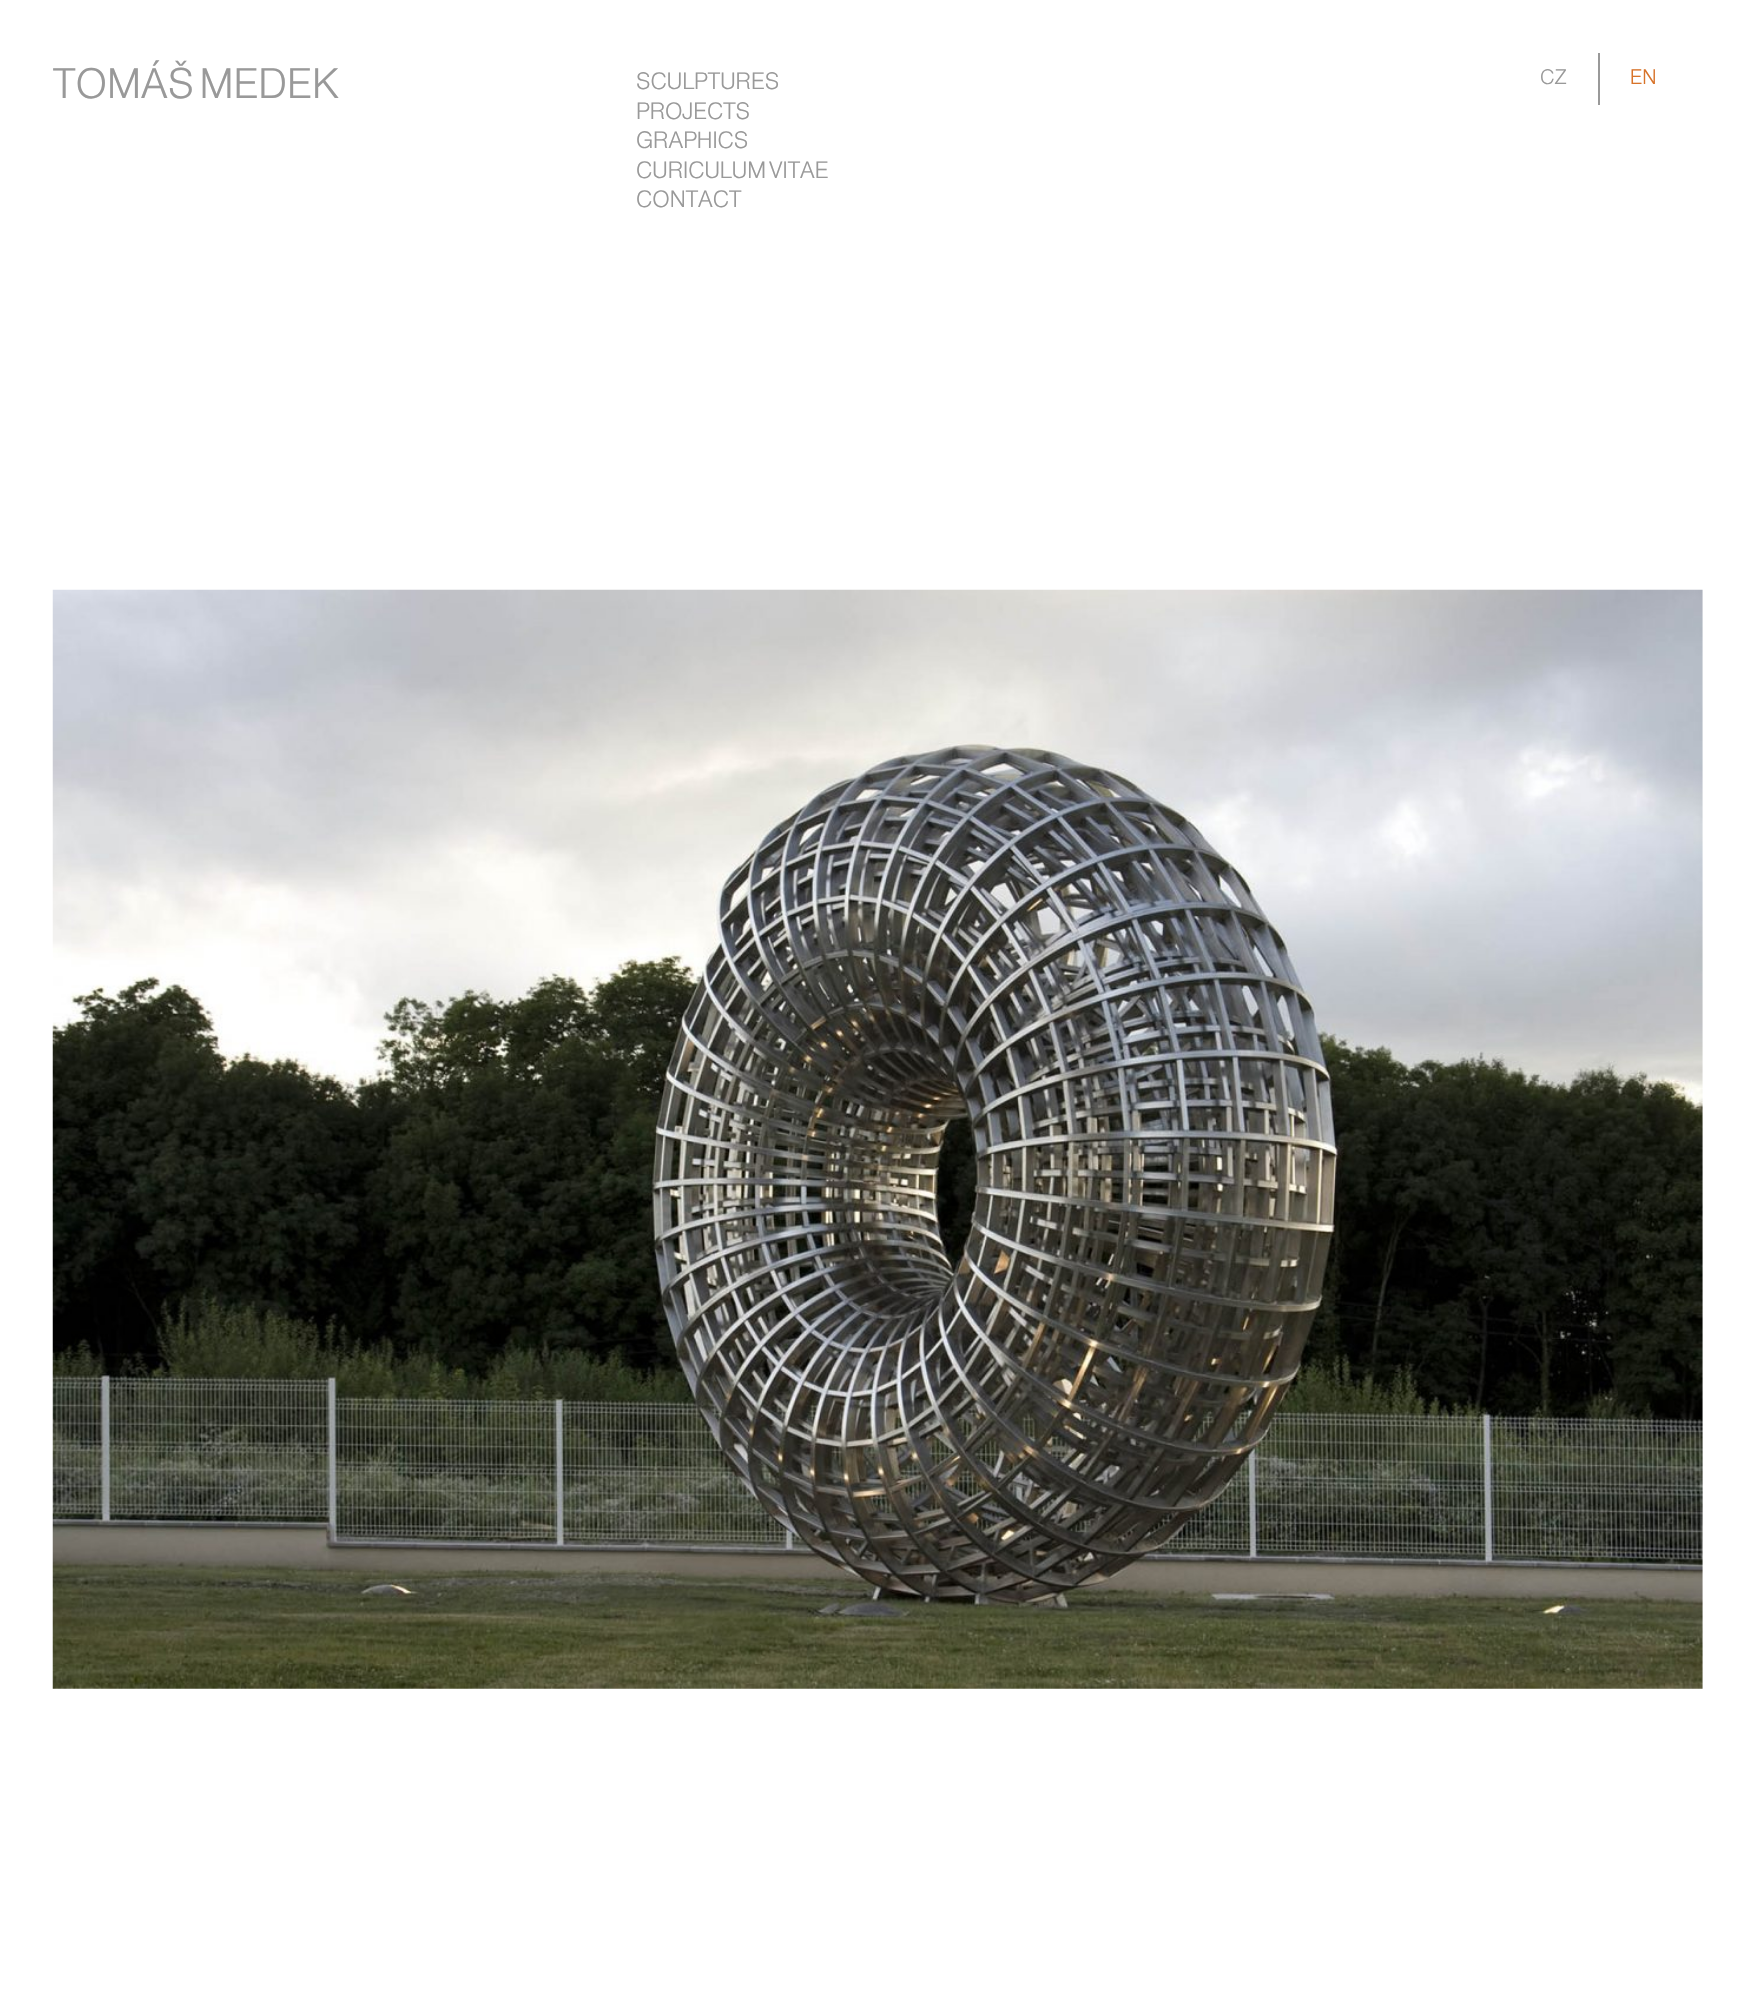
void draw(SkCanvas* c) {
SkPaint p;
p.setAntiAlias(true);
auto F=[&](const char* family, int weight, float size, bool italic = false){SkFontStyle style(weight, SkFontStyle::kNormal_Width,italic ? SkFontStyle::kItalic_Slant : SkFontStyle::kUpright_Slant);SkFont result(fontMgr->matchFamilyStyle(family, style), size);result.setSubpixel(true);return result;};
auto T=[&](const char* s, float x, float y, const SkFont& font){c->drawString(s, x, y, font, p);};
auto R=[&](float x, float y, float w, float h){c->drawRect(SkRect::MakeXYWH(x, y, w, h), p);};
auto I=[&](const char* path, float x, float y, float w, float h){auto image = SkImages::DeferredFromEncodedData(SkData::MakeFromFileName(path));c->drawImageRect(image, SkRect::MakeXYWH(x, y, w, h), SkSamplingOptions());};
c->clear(0xffffffff);
auto f1 = F("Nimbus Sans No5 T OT",300,44.75);
p.setColor(0xff999999);
T("TOMÁŠ MEDEK",53,98,f1);
auto f2 = F("Nimbus Sans No5 T OT",300,24.75);
T("SCULPTURES",636,89,f2);
T("PROJECTS",636,119,f2);
T("GRAPHICS",636,148,f2);
T("CURICULUM VITAE",636,178,f2);
T("CONTACT",636,207,f2);
R(1598,53,2,52);
auto f3 = F("Nimbus Sans No5 T OT",300,22);
T("CZ",1540,84,f3);
p.setColor(0xffd87329);
T("EN",1630,84,f3);
I("1.png",52,589,1651,1100);
}
